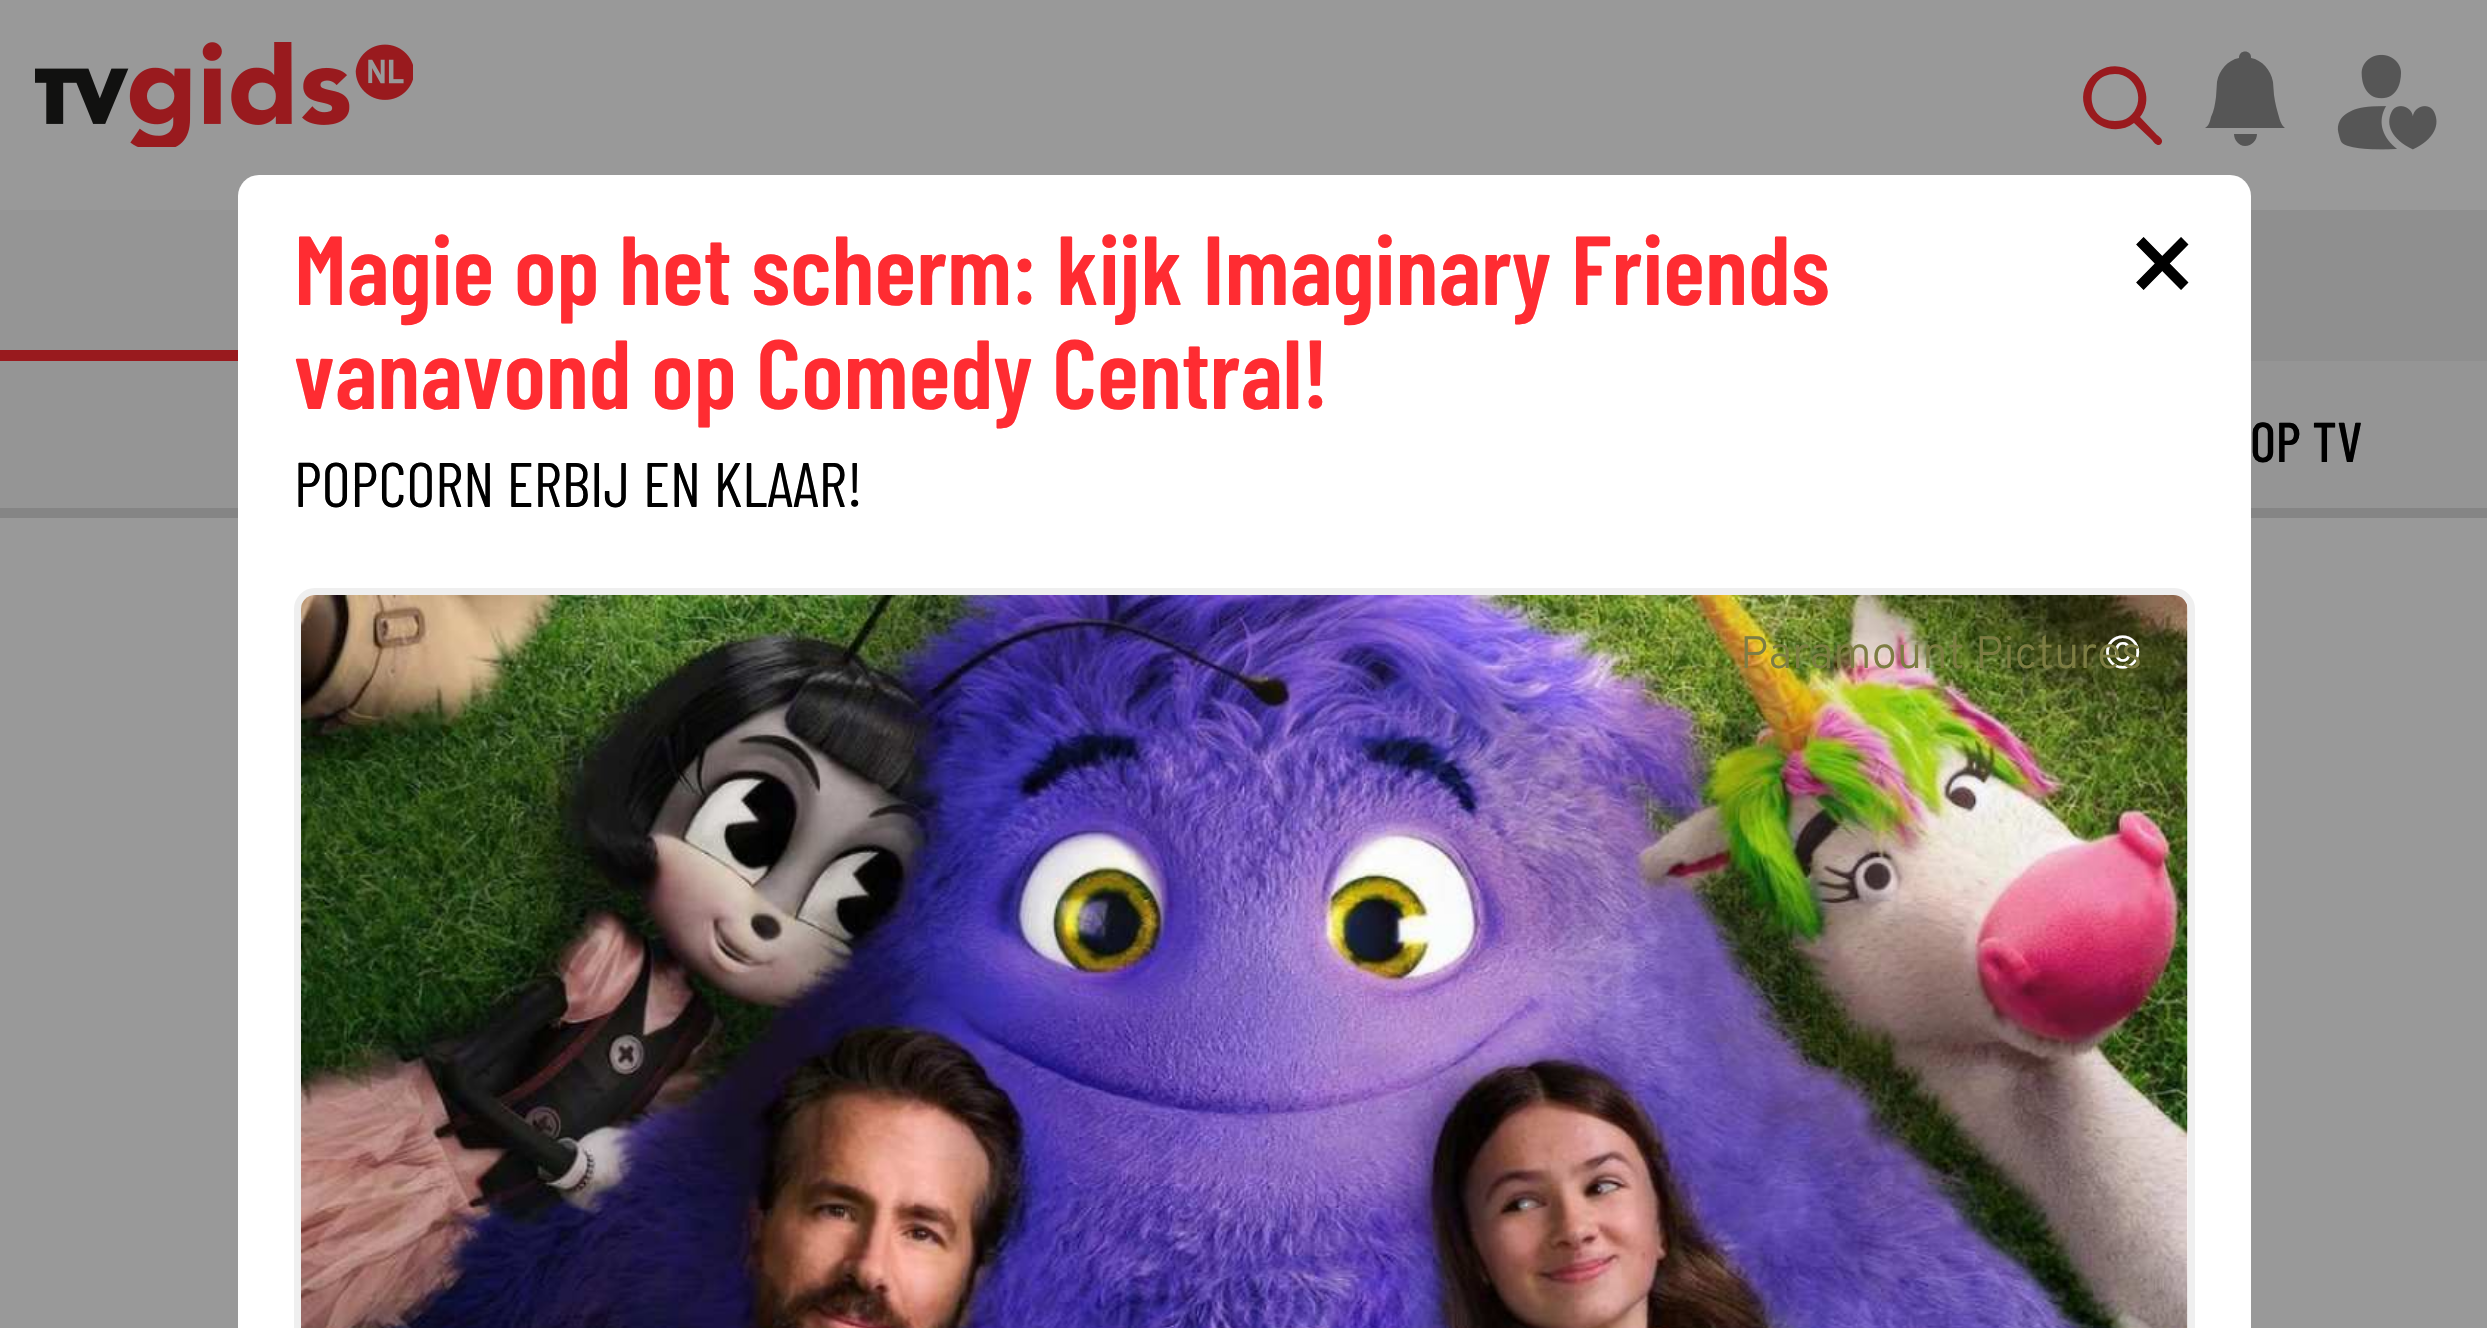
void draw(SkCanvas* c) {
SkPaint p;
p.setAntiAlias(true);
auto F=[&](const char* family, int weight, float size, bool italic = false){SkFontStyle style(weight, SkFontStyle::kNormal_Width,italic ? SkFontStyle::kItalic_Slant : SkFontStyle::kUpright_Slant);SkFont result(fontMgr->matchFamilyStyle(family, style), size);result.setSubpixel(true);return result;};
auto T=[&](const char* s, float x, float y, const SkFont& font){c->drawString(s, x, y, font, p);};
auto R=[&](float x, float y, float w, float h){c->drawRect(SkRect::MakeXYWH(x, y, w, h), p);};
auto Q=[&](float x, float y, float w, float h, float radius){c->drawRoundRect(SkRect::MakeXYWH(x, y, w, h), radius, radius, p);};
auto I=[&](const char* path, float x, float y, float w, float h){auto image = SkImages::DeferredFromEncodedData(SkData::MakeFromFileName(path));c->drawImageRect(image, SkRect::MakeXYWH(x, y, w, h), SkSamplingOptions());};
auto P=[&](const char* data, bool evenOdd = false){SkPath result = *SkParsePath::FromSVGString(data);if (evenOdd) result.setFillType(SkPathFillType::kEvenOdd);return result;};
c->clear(0xff999999);
p.setColor(0xff858585);
R(0,508,2487,10);
p.setColor(0xff959595);
R(0,361,2487,147);
p.setColor(0xffffffff);
Q(238,175,2013,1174,21);
auto f1 = F("Barlow Condensed",600,98);
p.setColor(0xffff2c32);
T("Magie op het scherm: kijk Imaginary Friends",294,305,f1);
T("vanavond op Comedy Central!",294,409,f1);
auto f2 = F("Source Sans Pro",600,126);
p.setColor(0xff000000);
T("×",2130,305,f2);
auto f3 = F("Barlow Condensed",400,63);
T("POPCORN ERBIJ EN KLAAR!",294,507,f3);
p.setStroke(true);
p.setStrokeWidth(7);
p.setColor(0xffefefef);
c->drawRoundRect(SkRect::MakeXYWH(297.5,591.5,1894,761),17.5,17.5,p);
I("1.png",301,595,1887,733);
auto f4 = F("Overpass",300,45.5);
p.setStroke(false);
p.setColor(0xffffffff);
T("©",2103,668,f4);
p.setColor(0xff7d7d43);
T("Paramount Pictures",1740,668,f4);
I("2.png",35,42,378,105);
p.setColor(0xff991a1e);
c->drawPath(P("M2140 117l17 18c3 2 7 5 4 9c-3 3-7-1-9-4l-18-17c-14 11-36 7-46-9c-18-29 18-62 46-41c5 4 10 10 11 17c3 9 1 20-5 27zm-25 4c5 0 10-1 14-4c18-14 8-43-14-43c-31 0-31 47 0 47z"),p);
p.setColor(0xff565656);
c->drawPath(P("M2251 58c1-8-12-9-12 0c-11 2-20 12-22 24l-1 15c-1 7-2 14-5 20c-1 4-2 9-6 11h80c-3-2-5-7-6-11c-2-7-4-14-5-22l-1-13c-2-12-11-22-22-24zm-6 88c7 0 12-6 12-12h-23c0 6 5 12 11 12z"),p);
I("3.png",2337,54,100,96);
p.setColor(0xff8f8f8f);
R(2251,210,236,151);
p.setColor(0xff959595);
R(0,210,238,140);
p.setColor(0xff991a1e);
R(0,350,238,11);
auto f5 = F("Barlow Condensed",500,56);
p.setColor(0xff000000);
T("OP TV",2250,462,f5);
}
